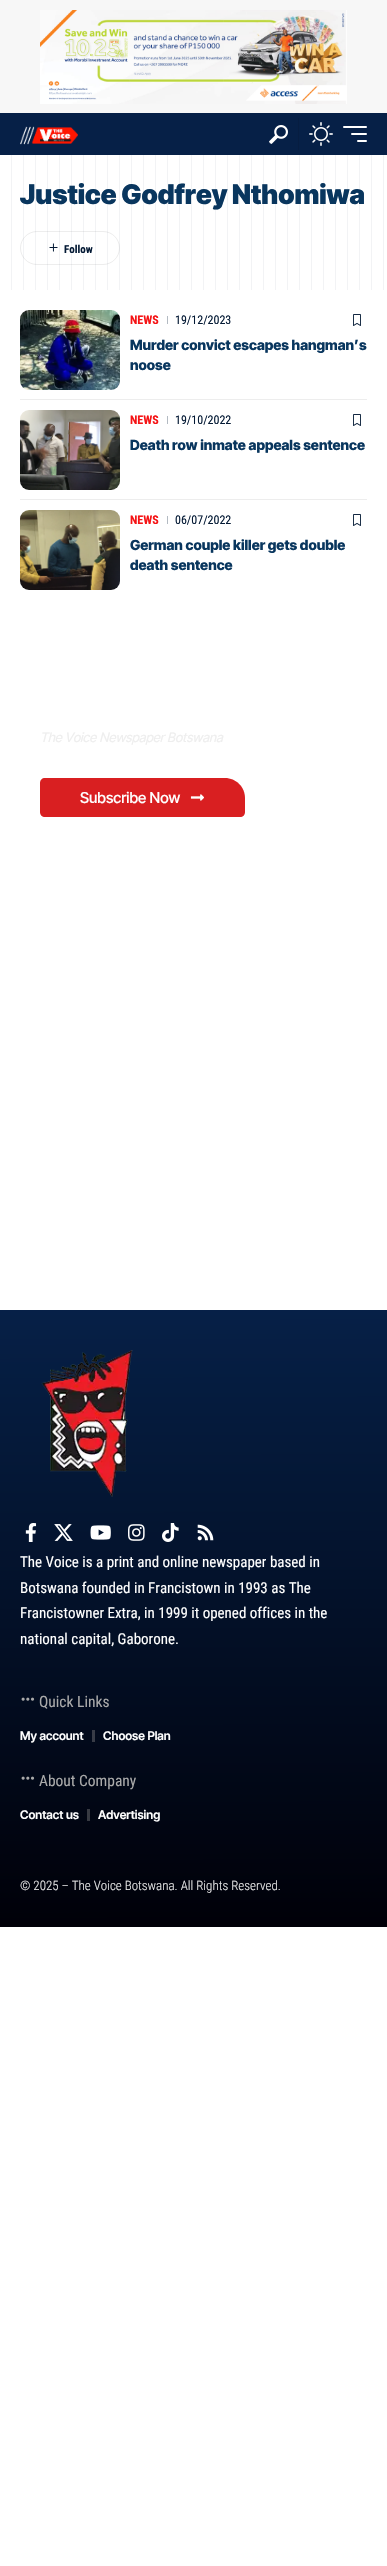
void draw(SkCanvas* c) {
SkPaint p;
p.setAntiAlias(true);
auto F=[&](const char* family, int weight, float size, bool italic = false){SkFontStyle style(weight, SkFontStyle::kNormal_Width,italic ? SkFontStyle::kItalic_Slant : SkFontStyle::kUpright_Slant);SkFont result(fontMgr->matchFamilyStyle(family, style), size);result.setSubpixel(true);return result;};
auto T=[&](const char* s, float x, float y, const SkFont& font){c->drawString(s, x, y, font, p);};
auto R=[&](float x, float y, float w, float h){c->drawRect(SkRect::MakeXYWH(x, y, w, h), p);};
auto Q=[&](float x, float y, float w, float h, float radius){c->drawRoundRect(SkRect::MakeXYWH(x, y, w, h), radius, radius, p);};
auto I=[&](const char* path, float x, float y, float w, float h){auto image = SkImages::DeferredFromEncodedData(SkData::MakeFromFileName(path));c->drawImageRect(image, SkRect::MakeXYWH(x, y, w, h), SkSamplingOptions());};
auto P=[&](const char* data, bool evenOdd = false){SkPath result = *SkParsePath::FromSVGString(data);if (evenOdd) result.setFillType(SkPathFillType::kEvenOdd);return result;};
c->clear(0xffffffff);
p.setColor(0xfff7f7f7);
R(0,0,387,113);
I("1.png",40,10,307,94);
p.setColor(0xff062047);
R(0,113,387,42);
I("2.png",20,126,58,19);
I("3.png",269,125,19,19);
p.setColor(0xff061d41);
R(298,118,1,32);
I("4.png",309,122,24,24);
p.setColor(0xffffffff);
Q(343,126,24,2,1);
Q(351,133,16,2,1);
Q(357,140,10,2,1);
p.setStroke(true);
p.setStrokeWidth(1);
p.setColor(0xffededed);
c->drawRoundRect(SkRect::MakeXYWH(20.5,231.5,99,33),16.5,16.5,p);
p.setStroke(false);
{
const SkColor colors[] = {0x0d031934,0x0d031934,0x00031934,0x00031934,0x0d031934,0x0d031934,0x00031934,0x00000000};
const float stops[] = {0,.04,.04,.5,.5,.54,.54,1};
const SkPoint ends[] = {{24,167}, {0,167}};
p.setShader(SkGradientShader::MakeLinear(ends, colors, stops, 8, SkTileMode::kClamp));
p.setAlpha(255);
}
R(11,155,13,135);
{
const SkColor colors[] = {0x0d031934,0x0d031934,0x00031934,0x00031934,0x0d031934,0x0d031934,0x00031934,0x00000000};
const float stops[] = {0,.04,.04,.5,.5,.54,.54,1};
const SkPoint ends[] = {{48,167}, {24,167}};
p.setShader(SkGradientShader::MakeLinear(ends, colors, stops, 8, SkTileMode::kClamp));
p.setAlpha(255);
}
R(35,155,13,135);
{
const SkColor colors[] = {0x0d031934,0x0d031934,0x00031934,0x00031934,0x0d031934,0x0d031934,0x00031934,0x00000000};
const float stops[] = {0,.04,.04,.5,.5,.54,.54,1};
const SkPoint ends[] = {{72,167}, {48,167}};
p.setShader(SkGradientShader::MakeLinear(ends, colors, stops, 8, SkTileMode::kClamp));
p.setAlpha(255);
}
R(59,155,13,135);
{
const SkColor colors[] = {0x0d031934,0x0d031934,0x00031934,0x00031934,0x0d031934,0x0d031934,0x00031934,0x00000000};
const float stops[] = {0,.04,.04,.5,.5,.54,.54,1};
const SkPoint ends[] = {{96,167}, {72,167}};
p.setShader(SkGradientShader::MakeLinear(ends, colors, stops, 8, SkTileMode::kClamp));
p.setAlpha(255);
}
R(83,155,13,135);
{
const SkColor colors[] = {0x0d031934,0x0d031934,0x00031934,0x00031934,0x0d031934,0x0d031934,0x00031934,0x00000000};
const float stops[] = {0,.04,.04,.5,.5,.54,.54,1};
const SkPoint ends[] = {{120,167}, {96,167}};
p.setShader(SkGradientShader::MakeLinear(ends, colors, stops, 8, SkTileMode::kClamp));
p.setAlpha(255);
}
R(107,155,13,135);
{
const SkColor colors[] = {0x0d031934,0x0d031934,0x00031934,0x00031934,0x0d031934,0x0d031934,0x00031934,0x00000000};
const float stops[] = {0,.04,.04,.5,.5,.54,.54,1};
const SkPoint ends[] = {{144,167}, {120,167}};
p.setShader(SkGradientShader::MakeLinear(ends, colors, stops, 8, SkTileMode::kClamp));
p.setAlpha(255);
}
R(131,155,13,135);
{
const SkColor colors[] = {0x0d031934,0x0d031934,0x00031934,0x00031934,0x0d031934,0x0d031934,0x00031934,0x00000000};
const float stops[] = {0,.04,.04,.5,.5,.54,.54,1};
const SkPoint ends[] = {{168,167}, {144,167}};
p.setShader(SkGradientShader::MakeLinear(ends, colors, stops, 8, SkTileMode::kClamp));
p.setAlpha(255);
}
R(155,155,13,135);
{
const SkColor colors[] = {0x0d031934,0x0d031934,0x00031934,0x00031934,0x0d031934,0x0d031934,0x00031934,0x00000000};
const float stops[] = {0,.04,.04,.5,.5,.54,.54,1};
const SkPoint ends[] = {{192,167}, {168,167}};
p.setShader(SkGradientShader::MakeLinear(ends, colors, stops, 8, SkTileMode::kClamp));
p.setAlpha(255);
}
R(179,155,13,135);
{
const SkColor colors[] = {0x0d031934,0x0d031934,0x00031934,0x00031934,0x0d031934,0x0d031934,0x00031934,0x00000000};
const float stops[] = {0,.04,.04,.5,.5,.54,.54,1};
const SkPoint ends[] = {{216,167}, {192,167}};
p.setShader(SkGradientShader::MakeLinear(ends, colors, stops, 8, SkTileMode::kClamp));
p.setAlpha(255);
}
R(203,155,13,135);
{
const SkColor colors[] = {0x0d031934,0x0d031934,0x00031934,0x00031934,0x0d031934,0x0d031934,0x00031934,0x00000000};
const float stops[] = {0,.04,.04,.5,.5,.54,.54,1};
const SkPoint ends[] = {{240,167}, {216,167}};
p.setShader(SkGradientShader::MakeLinear(ends, colors, stops, 8, SkTileMode::kClamp));
p.setAlpha(255);
}
R(227,155,13,135);
{
const SkColor colors[] = {0x0d031934,0x0d031934,0x00031934,0x00031934,0x0d031934,0x0d031934,0x00031934,0x00000000};
const float stops[] = {0,.04,.04,.5,.5,.54,.54,1};
const SkPoint ends[] = {{264,167}, {240,167}};
p.setShader(SkGradientShader::MakeLinear(ends, colors, stops, 8, SkTileMode::kClamp));
p.setAlpha(255);
}
R(251,155,13,135);
{
const SkColor colors[] = {0x0d031934,0x0d031934,0x00031934,0x00031934,0x0d031934,0x0d031934,0x00031934,0x00000000};
const float stops[] = {0,.04,.04,.5,.5,.54,.54,1};
const SkPoint ends[] = {{288,167}, {264,167}};
p.setShader(SkGradientShader::MakeLinear(ends, colors, stops, 8, SkTileMode::kClamp));
p.setAlpha(255);
}
R(275,155,13,135);
{
const SkColor colors[] = {0x0d031934,0x0d031934,0x00031934,0x00031934,0x0d031934,0x0d031934,0x00031934,0x00000000};
const float stops[] = {0,.04,.04,.5,.5,.54,.54,1};
const SkPoint ends[] = {{312,167}, {288,167}};
p.setShader(SkGradientShader::MakeLinear(ends, colors, stops, 8, SkTileMode::kClamp));
p.setAlpha(255);
}
R(299,155,13,135);
{
const SkColor colors[] = {0x0d031934,0x0d031934,0x00031934,0x00031934,0x0d031934,0x0d031934,0x00031934,0x00000000};
const float stops[] = {0,.04,.04,.5,.5,.54,.54,1};
const SkPoint ends[] = {{336,167}, {312,167}};
p.setShader(SkGradientShader::MakeLinear(ends, colors, stops, 8, SkTileMode::kClamp));
p.setAlpha(255);
}
R(323,155,13,135);
{
const SkColor colors[] = {0x0d031934,0x0d031934,0x00031934,0x00031934,0x0d031934,0x0d031934,0x00031934,0x00000000};
const float stops[] = {0,.04,.04,.5,.5,.54,.54,1};
const SkPoint ends[] = {{360,167}, {336,167}};
p.setShader(SkGradientShader::MakeLinear(ends, colors, stops, 8, SkTileMode::kClamp));
p.setAlpha(255);
}
R(347,155,13,135);
{
const SkColor colors[] = {0x0d031934,0x0d031934,0x00031934,0x00031934,0x0d031934,0x0d031934,0x00031934,0x00000000};
const float stops[] = {0,.04,.04,.5,.5,.54,.54,1};
const SkPoint ends[] = {{384,167}, {360,167}};
p.setShader(SkGradientShader::MakeLinear(ends, colors, stops, 8, SkTileMode::kClamp));
p.setAlpha(255);
}
R(371,155,13,135);
auto f1 = F("Inter Tight",900,27);
p.setShader(nullptr);
p.setColor(0xff09365e);
T("Justice Godfrey Nthomiwa",20,204,f1);
I("5.png",49,243,9,9);
auto f2 = F("Roboto Condensed",700,11);
p.setColor(0xff031934);
T("Follow",64,253,f2);
I("6.png",20,310,100,80);
auto f3 = F("Roboto Condensed",700,12);
p.setColor(0xfff51416);
T("NEWS",130,324,f3);
p.setColor(0xffb3bac2);
R(167,316,1,8);
auto f4 = F("Roboto Condensed",400,12);
p.setColor(0xff031934);
T("19/12/2023",175,324,f4);
I("7.png",353,314,8,12);
auto f5 = F("Inter Tight",800,14);
p.setColor(0xff09365e);
T("Murder convict escapes hangman’s",130,350,f5);
T("noose",130,370,f5);
p.setColor(0xffededed);
R(20,399,347,1);
I("8.png",20,410,100,80);
p.setColor(0xfff51416);
T("NEWS",130,424,f3);
p.setColor(0xffb3bac2);
R(167,416,1,8);
p.setColor(0xff031934);
T("19/10/2022",175,424,f4);
I("7.png",353,414,8,12);
p.setColor(0xff09365e);
T("Death row inmate appeals sentence",130,450,f5);
p.setColor(0xffededed);
R(20,499,347,1);
I("9.png",20,510,100,80);
p.setColor(0xfff51416);
T("NEWS",130,524,f3);
p.setColor(0xffb3bac2);
R(167,516,1,8);
p.setColor(0xff031934);
T("06/07/2022",175,524,f4);
I("7.png",353,514,8,12);
p.setColor(0xff09365e);
T("German couple killer gets double",130,550,f5);
T("death sentence",130,570,f5);
auto f6 = F("Inter Tight",400,13,true);
p.setColor(0xffeeeeee);
T("The Voice Newspaper Botswana",40,742,f6);
p.setColor(0xffd91f21);
c->drawPath(P("M45 778h180c11 0 20 9 20 20v14c0 3-2 5-5 5h-195c-3 0-5-2-5-5v-29c0-3 2-5 5-5z"),p);
auto f7 = F("Inter Tight",500,15);
p.setColor(0xffffffff);
T("Subscribe Now",80,803,f7);
I("10.png",190,794,14,7);
{
const SkColor colors[] = {0xff062047,0xff000008};
const float stops[] = {0,1};
const SkPoint ends[] = {{193,1310}, {194,1927}};
p.setShader(SkGradientShader::MakeLinear(ends, colors, stops, 2, SkTileMode::kClamp));
p.setAlpha(255);
}
R(0,1310,387,617);
I("11.png",41,1350,92,147);
I("12.png",25,1523,12,19);
I("13.png",54,1524,19,17);
I("14.png",90,1525,21,15);
I("15.png",128,1524,17,17);
I("16.png",162,1523,17,19);
I("17.png",197,1524,17,17);
auto f8 = F("Roboto Condensed",400,15);
p.setShader(nullptr);
p.setColor(0xffffffff);
T("The Voice is a print and online newspaper based in",20,1567,f8);
T("Botswana founded in Francistown in 1993 as The",20,1593,f8);
T("Francistowner Extra, in 1999 it opened offices in the",20,1618,f8);
T("national capital, Gaborone.",20,1644,f8);
I("18.png",21,1697,14,4);
auto f9 = F("Roboto Condensed",400,15.5);
p.setColor(0xffaaaaaa);
T("Quick Links",39,1707,f9);
auto f10 = F("Inter Tight",600,12);
p.setColor(0xffffffff);
T("My account",20,1740,f10);
p.setColor(0xff383c47);
R(92,1730,3,12);
p.setColor(0xffffffff);
T("Choose Plan",103,1740,f10);
I("19.png",21,1776,14,4);
p.setColor(0xffaaaaaa);
T("About Company",39,1786,f9);
p.setColor(0xffffffff);
T("Contact us",20,1819,f10);
p.setColor(0xff373a42);
R(87,1809,3,12);
p.setColor(0xffffffff);
T("Advertising",98,1819,f10);
auto f11 = F("Roboto Condensed",300,13);
p.setColor(0xffeeeeee);
T("© 2025 – The Voice Botswana. All Rights Reserved.",20,1890,f11);
}
